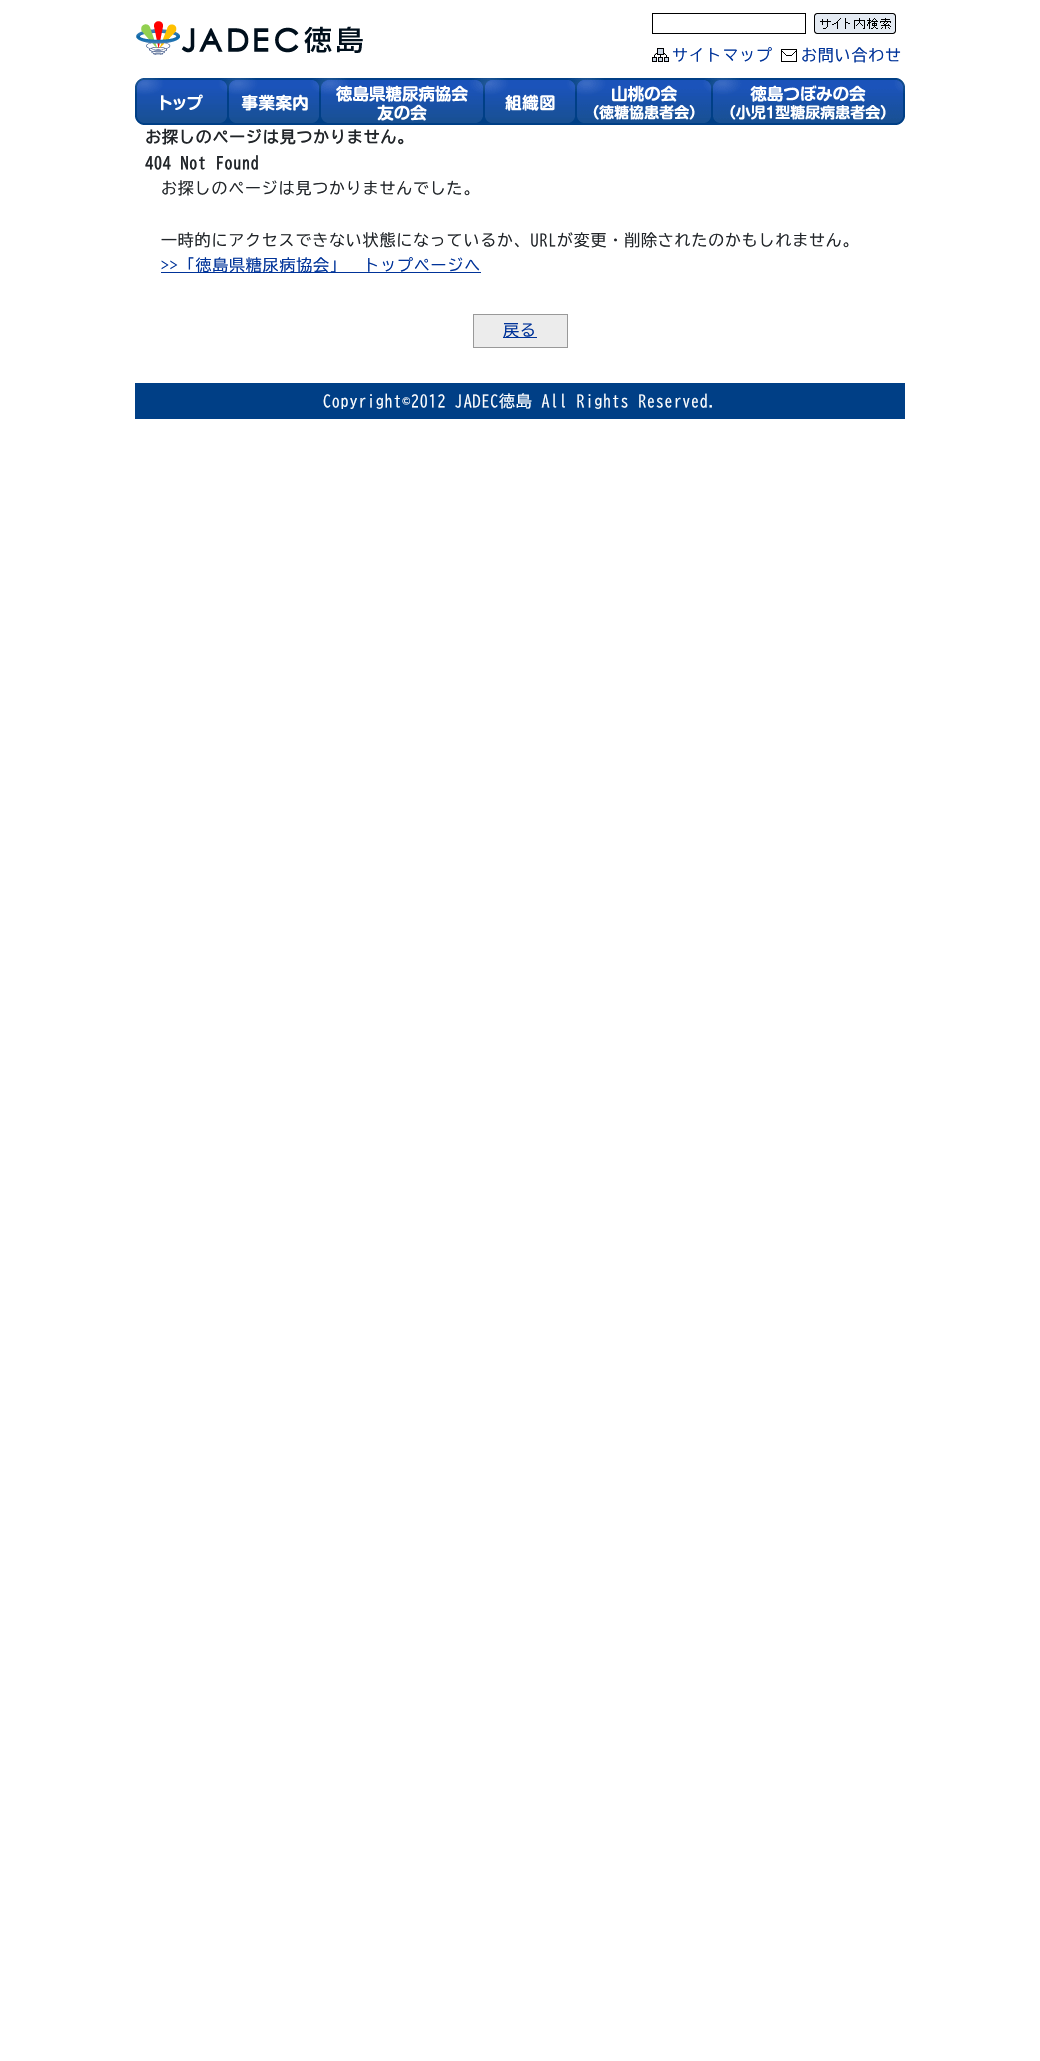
void draw(SkCanvas* c) {
SkPaint p;
p.setAntiAlias(true);
auto F=[&](const char* family, int weight, float size, bool italic = false){SkFontStyle style(weight, SkFontStyle::kNormal_Width,italic ? SkFontStyle::kItalic_Slant : SkFontStyle::kUpright_Slant);SkFont result(fontMgr->matchFamilyStyle(family, style), size);result.setSubpixel(true);return result;};
auto L=[&](const char* s, float x, float y, const SkFont& font, const SkPaint& ink, float letter, float word){std::vector<SkGlyphID> glyphs(font.countText(s, strlen(s), SkTextEncoding::kUTF8));std::vector<float> xs(glyphs.size());font.textToGlyphs(s, strlen(s), SkTextEncoding::kUTF8, glyphs);font.getXPos(glyphs, xs, x);float extra = 0;for (size_t i = 0; i < glyphs.size(); i++) {xs[i] += extra;extra += letter + word * (glyphs[i] == font.unicharToGlyph(' '));}c->drawTextBlob(SkTextBlob::MakeFromPosHGlyphs(glyphs, xs, y, font), 0, 0, ink);};
auto R=[&](float x, float y, float w, float h){c->drawRect(SkRect::MakeXYWH(x, y, w, h), p);};
auto I=[&](const char* path, float x, float y, float w, float h){auto image = SkImages::DeferredFromEncodedData(SkData::MakeFromFileName(path));c->drawImageRect(image, SkRect::MakeXYWH(x, y, w, h), SkSamplingOptions());};
c->clear(0xffffffff);
I("1.png",136,21,227,34);
p.setStroke(true);
p.setStrokeWidth(1);
p.setColor(0xff000000);
c->drawRect(SkRect::MakeXYWH(652.5,13.5,153,20),p);
I("2.png",814,13,82,21);
I("3.png",652,48,17,14);
auto f1 = F("BIZ UDGothic",400,16);
p.setStroke(false);
p.setColor(0xff003399);
L("サイトマップ",672,61,f1,p,.8,0);
I("4.png",781,49,16,13);
L("お問い合わせ",801,61,f1,p,.8,0);
I("5.png",135,78,93,47);
I("6.png",228,78,92,47);
I("7.png",320,78,164,47);
I("8.png",484,78,92,47);
I("9.png",576,78,136,47);
I("10.png",712,78,193,47);
auto f2 = F("BIZ UDGothic",700,16);
p.setColor(0xff212529);
L("お探しのページは見つかりません。",145,143,f2,p,.8,0);
L("404 Not Found",145,169,f2,p,.8,0);
L("お探しのページは見つかりませんでした。",161,194,f1,p,.8,0);
L("一時的にアクセスできない状態になっているか、URLが変更・削除されたのかもしれません。",161,246,f1,p,.8,0);
p.setColor(0xff003399);
R(161,272,320,1);
L(">>「徳島県糖尿病協会」　トップページへ",161,271,f1,p,.8,0);
p.setColor(0xffececec);
c->drawRect(SkRect::MakeXYWH(473.5,314.5,94,33),p);
p.setStroke(true);
p.setColor(0xff999999);
c->drawRect(SkRect::MakeXYWH(473.5,314.5,94,33),p);
p.setStroke(false);
p.setColor(0xff003399);
R(503,337,34,1);
L("戻る",503,336,f1,p,.8,0);
p.setColor(0xff003f86);
R(135,383,770,36);
p.setColor(0xffffffff);
L("Copyright©2012 JADEC徳島 All Rights Reserved.",323,407,f1,p,.8,0);
}
